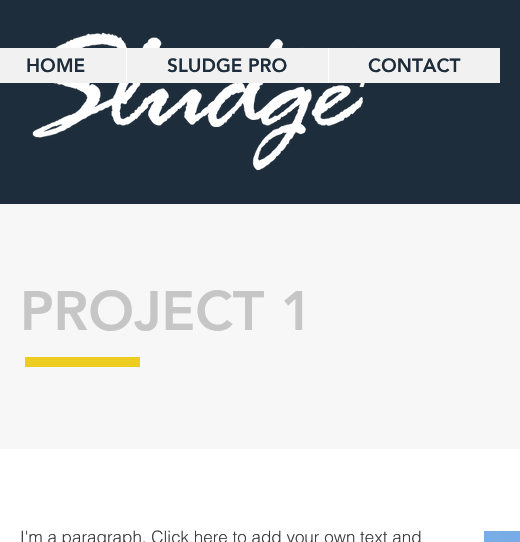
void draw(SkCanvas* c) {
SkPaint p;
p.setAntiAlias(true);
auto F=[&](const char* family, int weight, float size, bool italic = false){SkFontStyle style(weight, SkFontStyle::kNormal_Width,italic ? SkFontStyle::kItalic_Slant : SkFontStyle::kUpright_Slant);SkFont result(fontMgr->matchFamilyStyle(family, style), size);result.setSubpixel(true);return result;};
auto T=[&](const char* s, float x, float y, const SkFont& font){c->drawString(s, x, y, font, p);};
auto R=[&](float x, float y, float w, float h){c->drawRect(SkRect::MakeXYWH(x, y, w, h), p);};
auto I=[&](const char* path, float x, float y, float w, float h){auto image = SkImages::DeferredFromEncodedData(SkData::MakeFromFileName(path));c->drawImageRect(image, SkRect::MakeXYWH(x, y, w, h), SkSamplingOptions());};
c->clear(0xfff7f7f7);
p.setColor(0xff1e2d3b);
R(0,0,520,204);
I("1.png",32,32,333,139);
p.setColor(0xfff1f1f1);
R(0,48,500,35);
auto f1 = F("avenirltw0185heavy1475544",900,19);
p.setColor(0xff1e2d3b);
T("HOME",26,72,f1);
p.setColor(0xffffffff);
R(126,48,1,35);
p.setColor(0xff1e2d3b);
T("SLUDGE PRO",167,72,f1);
p.setColor(0xffffffff);
R(328,48,1,35);
p.setColor(0xff1e2d3b);
T("CONTACT",368,72,f1);
auto f2 = F("avenirltw0185heavy1475544",900,55);
p.setColor(0xffc6c6c6);
T("PROJECT 1",20,330,f2);
p.setColor(0xffedcd1f);
R(25,357,115,10);
p.setColor(0xffffffff);
R(0,449,520,93);
auto f3 = F("helvetica",300,17);
p.setColor(0xff3b3a3a);
T("I'm a paragraph. Click here to add your own text and",20,543,f3);
I("2.png",484,531,36,11);
}
